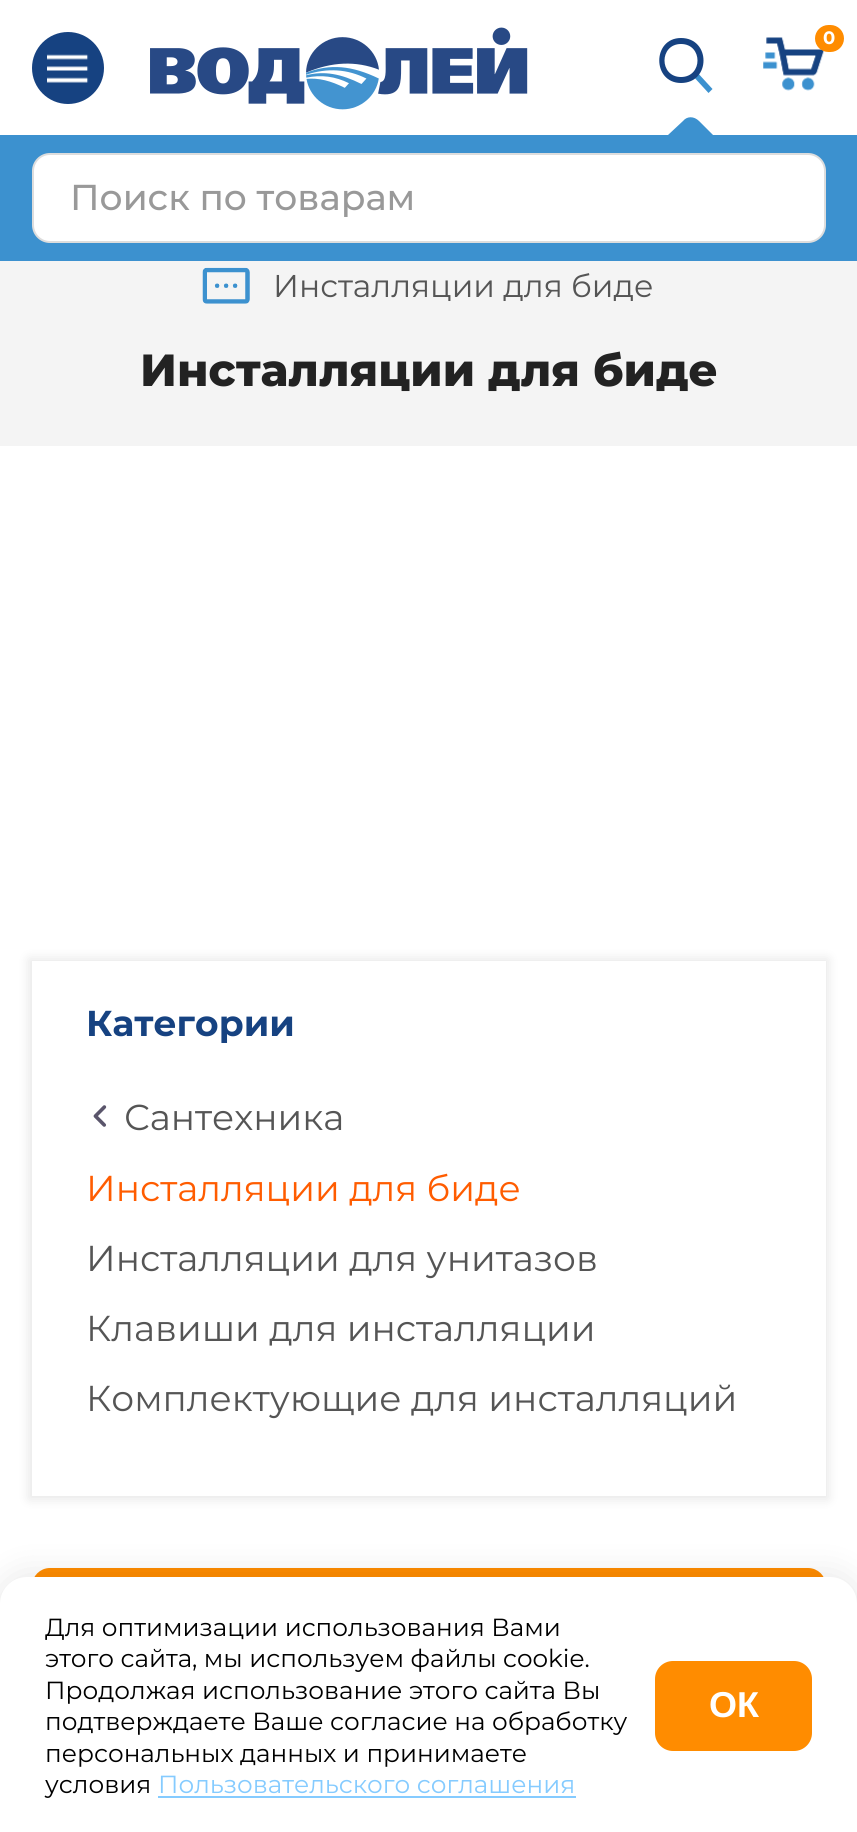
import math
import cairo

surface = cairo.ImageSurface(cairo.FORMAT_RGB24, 857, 1832)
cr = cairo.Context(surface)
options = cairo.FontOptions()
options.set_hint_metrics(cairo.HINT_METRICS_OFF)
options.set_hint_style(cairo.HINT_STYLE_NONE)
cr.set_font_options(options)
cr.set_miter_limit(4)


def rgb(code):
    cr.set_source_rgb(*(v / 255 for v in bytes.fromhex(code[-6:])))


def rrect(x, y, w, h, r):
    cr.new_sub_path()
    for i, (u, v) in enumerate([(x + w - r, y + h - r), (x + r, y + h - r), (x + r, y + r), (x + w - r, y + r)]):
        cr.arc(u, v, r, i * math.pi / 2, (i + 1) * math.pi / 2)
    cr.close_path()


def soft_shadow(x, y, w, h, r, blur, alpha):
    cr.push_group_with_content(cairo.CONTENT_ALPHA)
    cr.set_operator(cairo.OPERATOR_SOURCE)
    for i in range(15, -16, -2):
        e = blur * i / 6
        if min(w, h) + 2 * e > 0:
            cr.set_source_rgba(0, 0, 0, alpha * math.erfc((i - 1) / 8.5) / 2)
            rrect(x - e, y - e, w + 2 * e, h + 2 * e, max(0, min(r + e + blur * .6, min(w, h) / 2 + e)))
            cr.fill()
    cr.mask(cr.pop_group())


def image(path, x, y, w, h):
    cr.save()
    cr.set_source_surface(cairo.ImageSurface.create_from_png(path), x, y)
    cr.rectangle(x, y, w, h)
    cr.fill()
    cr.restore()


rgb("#ffffff")
cr.paint()
rgb("#164281")
cr.arc(68, 68, 36, 0, 2 * math.pi)
cr.fill()
image("img/1.png", 47, 54, 42, 29)
image("img/2.png", 150, 27, 378, 83)
rgb("#3c91cf")
cr.new_path()
cr.move_to(691.5, 74.5)
cr.line_to(708.5, 93)
cr.line_to(712.5, 89)
cr.line_to(695.5, 70.5)
cr.close_path()
cr.fill()
rgb("#164281")
cr.new_path()
cr.move_to(681, 83)
cr.curve_to(711, 83, 711, 38, 681, 38)
cr.curve_to(652, 38, 652, 83, 681, 83)
cr.close_path()
cr.move_to(681, 77)
cr.curve_to(659, 77, 659, 44, 681, 44)
cr.curve_to(703, 44, 703, 77, 681, 77)
cr.close_path()
cr.fill()
image("img/3.png", 763, 37, 62, 54)
rgb("#ff8c00")
rrect(815, 25, 29, 27, 13.5)
cr.fill()
rgb("#3c91cf")
cr.rectangle(0, 135, 857, 126)
cr.fill()
cr.new_path()
cr.move_to(699, 121)
cr.line_to(713, 135)
cr.line_to(707, 141)
cr.curve_to(698, 150, 684, 150, 675, 141)
cr.line_to(668, 135)
cr.line_to(683, 121)
cr.curve_to(687, 116, 694, 116, 699, 121)
cr.close_path()
cr.fill()
rgb("#ffffff")
rrect(33, 154, 792, 88, 17)
cr.fill_preserve()
rgb("#dddddd")
cr.stroke()
rgb("#f4f4f4")
cr.rectangle(0, 261, 857, 185)
cr.fill()
image("img/4.png", 202, 267, 48, 37)
cr.save()
cr.set_fill_rule(cairo.FILL_RULE_EVEN_ODD)
cr.new_path()
cr.move_to(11, 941)
cr.line_to(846, 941)
cr.line_to(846, 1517)
cr.line_to(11, 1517)
cr.close_path()
cr.move_to(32, 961)
cr.line_to(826, 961)
cr.line_to(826, 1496)
cr.line_to(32, 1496)
cr.close_path()
cr.clip()
rgb("#000000")
soft_shadow(29, 959, 799, 540, 0, 5.5, 0.1)
cr.restore()
image("img/5.png", 93, 1105, 14, 22)
rgb("#ff8c00")
rrect(34.5, 1570.5, 789, 103, 15.5)
cr.fill_preserve()
cr.set_line_width(5)
cr.stroke()
rgb("#000000")
soft_shadow(-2, 1575, 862, 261, 29, 17, 0.1)
rgb("#ffffff")
cr.new_path()
cr.move_to(27, 1577)
cr.line_to(830, 1577)
cr.curve_to(845, 1577, 857, 1589, 857, 1604)
cr.line_to(857, 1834)
cr.line_to(0, 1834)
cr.line_to(0, 1604)
cr.curve_to(0, 1589, 12, 1577, 27, 1577)
cr.close_path()
cr.fill()
rgb("#85cbff")
cr.rectangle(158, 1796, 418, 2)
cr.fill()
rgb("#ff8c00")
rrect(655, 1661, 157, 90, 18)
cr.fill()
cr.select_font_face("Montserrat", cairo.FONT_SLANT_NORMAL, cairo.FONT_WEIGHT_BOLD)
cr.set_font_size(18)
rgb("#ffffff")
cr.move_to(823, 44)
cr.show_text("0")
cr.select_font_face("Montserrat Medium")
cr.set_font_size(36)
rgb("#999999")
cr.move_to(70, 210)
cr.show_text("Поиск по товарам")
cr.select_font_face("Montserrat")
cr.set_font_size(31.5)
rgb("#555555")
cr.move_to(273, 297)
cr.show_text("Инсталляции для биде")
cr.select_font_face("Montserrat ExtraBold")
cr.set_font_size(45)
rgb("#222222")
cr.move_to(140, 386)
cr.show_text("Инсталляции для биде")
cr.select_font_face("Montserrat", cairo.FONT_SLANT_NORMAL, cairo.FONT_WEIGHT_BOLD)
cr.set_font_size(36)
rgb("#164281")
cr.move_to(86, 1036)
cr.show_text("Категории")
cr.select_font_face("Montserrat")
rgb("#555555")
cr.move_to(124, 1130)
cr.show_text("Сантехника")
rgb("#ff5c00")
cr.move_to(86, 1201)
cr.show_text("Инсталляции для биде")
rgb("#555555")
for x, y, s in [
    (86, 1271, "Инсталляции для унитазов"),
    (86, 1341, "Клавиши для инсталляции"),
    (86, 1411, "Комплектующие для инсталляций"),
]:
    cr.move_to(x, y)
    cr.show_text(s)
cr.set_font_size(24.75)
rgb("#000000")
for x, y, s in [
    (45, 1636, "Для оптимизации использования Вами"),
    (45, 1667, "этого сайта, мы используем файлы cookie."),
    (45, 1699, "Продолжая использование этого сайта Вы"),
    (45, 1730, "подтверждаете Ваше согласие на обработку"),
    (45, 1762, "персональных данных и принимаете"),
    (45, 1793, "условия"),
]:
    cr.move_to(x, y)
    cr.show_text(s)
rgb("#85cbff")
cr.move_to(158, 1793)
cr.show_text("Пользовательского соглашения")
cr.select_font_face("Liberation Sans", cairo.FONT_SLANT_NORMAL, cairo.FONT_WEIGHT_BOLD)
cr.set_font_size(36)
rgb("#ffffff")
cr.move_to(709, 1717)
cr.show_text("ОК")
surface.write_to_png("page.png")
